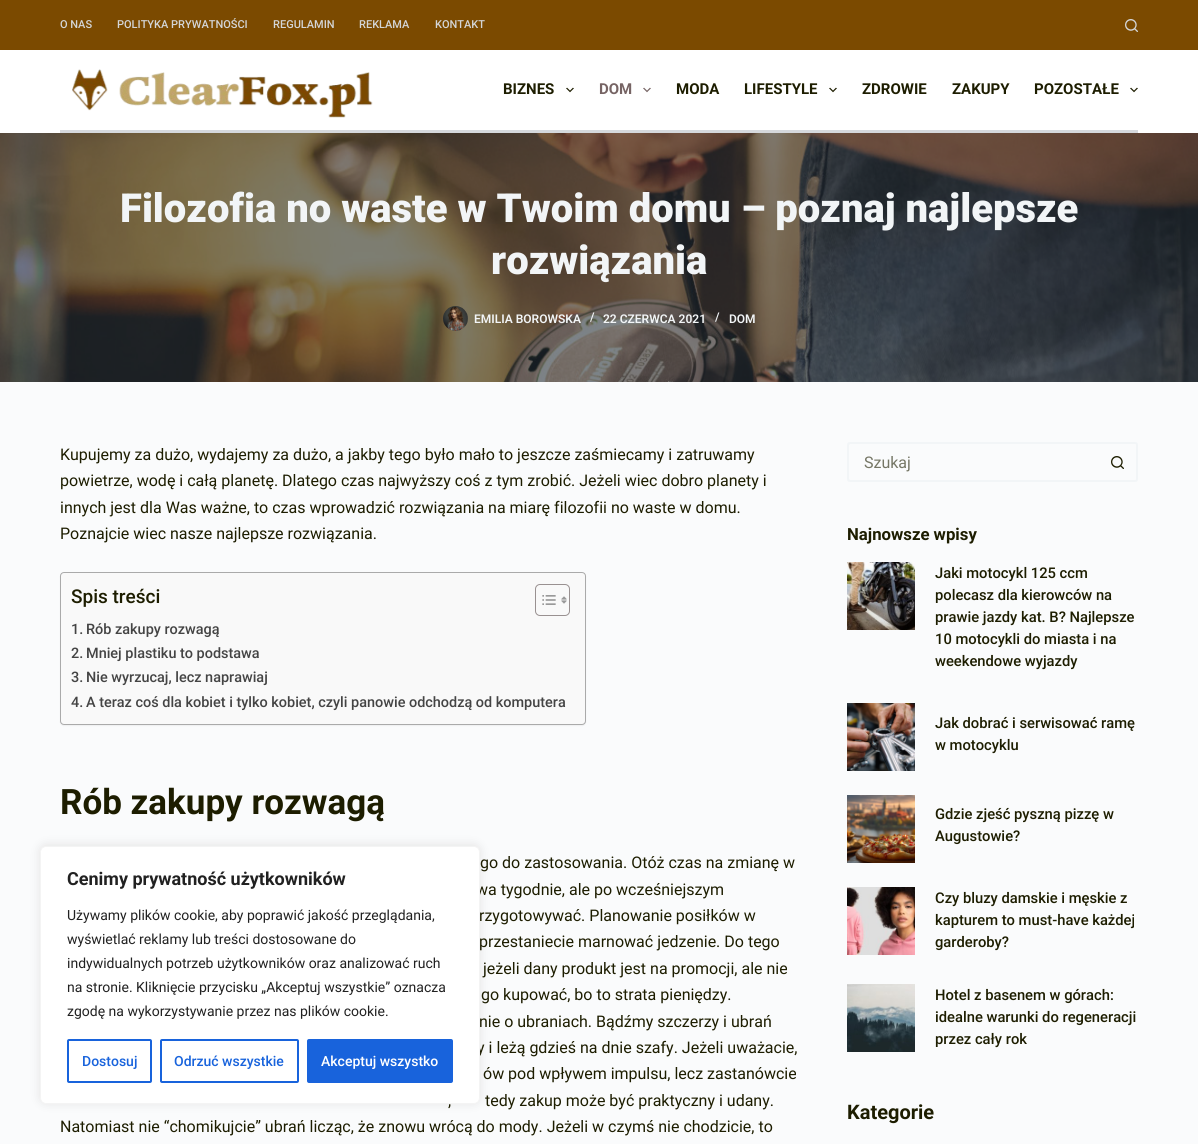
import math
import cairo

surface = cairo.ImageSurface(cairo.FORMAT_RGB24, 1198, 1144)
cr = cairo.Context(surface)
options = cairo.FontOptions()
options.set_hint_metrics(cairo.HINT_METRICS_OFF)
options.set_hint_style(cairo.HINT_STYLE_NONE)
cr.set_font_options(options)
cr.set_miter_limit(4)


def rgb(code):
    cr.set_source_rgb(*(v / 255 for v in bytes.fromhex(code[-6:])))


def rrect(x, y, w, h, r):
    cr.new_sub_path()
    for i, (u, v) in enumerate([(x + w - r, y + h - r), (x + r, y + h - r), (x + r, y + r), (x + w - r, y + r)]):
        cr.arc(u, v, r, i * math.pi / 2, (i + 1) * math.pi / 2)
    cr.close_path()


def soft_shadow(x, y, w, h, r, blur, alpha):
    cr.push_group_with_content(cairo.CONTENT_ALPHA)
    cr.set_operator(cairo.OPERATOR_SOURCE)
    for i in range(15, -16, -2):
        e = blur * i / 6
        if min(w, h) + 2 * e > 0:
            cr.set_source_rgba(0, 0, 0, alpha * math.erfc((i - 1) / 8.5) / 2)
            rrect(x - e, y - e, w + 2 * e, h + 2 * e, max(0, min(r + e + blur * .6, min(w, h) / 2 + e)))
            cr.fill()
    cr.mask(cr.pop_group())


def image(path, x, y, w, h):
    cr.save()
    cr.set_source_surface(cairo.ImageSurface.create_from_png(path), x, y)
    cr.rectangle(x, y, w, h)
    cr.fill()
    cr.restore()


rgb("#fafbfc")
cr.paint()
rgb("#7b4a00")
cr.rectangle(0, 0, 1198, 50)
cr.fill()
image("img/1.png", 1125, 19, 13, 13)
rgb("#ffffff")
cr.rectangle(0, 50, 1198, 83)
cr.fill()
rgb("#d5d8dc")
cr.rectangle(60, 130, 1078, 3)
cr.fill()
image("img/2.png", 72, 69, 301, 49)
image("img/3.png", 566, 87, 8, 6)
image("img/4.png", 643, 87, 8, 6)
image("img/3.png", 829, 87, 8, 6)
image("img/3.png", 1130, 87, 8, 6)
image("img/5.png", 0, 133, 1198, 249)
image("img/6.png", 443, 306, 25, 25)
rgb("#000000")
soft_shadow(60, 573, 526, 153, 4, 0.5, 0.05)
rgb("#f9f9f9")
rrect(60.5, 572.5, 525, 152, 3.5)
cr.fill_preserve()
rgb("#aaaaaa")
cr.set_line_width(1)
cr.stroke()
rrect(535.5, 584.5, 34, 31, 4.5)
rgb("#999191")
cr.stroke()
image("img/7.png", 542, 595, 14, 10)
image("img/8.png", 561, 596, 6, 8)
rgb("#f2f5f7")
cr.set_fill_rule(cairo.FILL_RULE_EVEN_ODD)
cr.new_path()
cr.move_to(850, 442)
cr.line_to(1098, 442)
cr.line_to(1098, 482)
cr.line_to(850, 482)
cr.curve_to(848, 482, 847, 481, 847, 479)
cr.line_to(847, 445)
cr.curve_to(847, 443, 848, 442, 850, 442)
cr.close_path()
cr.move_to(850, 444)
cr.line_to(1098, 444)
cr.line_to(1098, 480)
cr.line_to(850, 480)
cr.line_to(849, 479)
cr.line_to(849, 445)
cr.close_path()
cr.fill()
cr.new_path()
cr.move_to(1098, 442)
cr.line_to(1135, 442)
cr.curve_to(1137, 442, 1138, 443, 1138, 445)
cr.line_to(1138, 479)
cr.curve_to(1138, 481, 1137, 482, 1135, 482)
cr.line_to(1098, 482)
cr.close_path()
cr.move_to(1098, 444)
cr.line_to(1135, 444)
cr.curve_to(1136, 444, 1136, 444, 1136, 445)
cr.line_to(1136, 479)
cr.curve_to(1136, 480, 1136, 480, 1135, 480)
cr.line_to(1098, 480)
cr.close_path()
cr.fill()
image("img/9.png", 1111, 456, 13, 13)
image("img/10.png", 847, 562, 68, 68)
image("img/11.png", 847, 703, 68, 68)
image("img/12.png", 847, 795, 68, 68)
image("img/13.png", 847, 887, 68, 68)
image("img/14.png", 847, 984, 68, 68)
rgb("#acabab")
soft_shadow(40, 845, 440, 258, 6, 5, 0.3)
cr.select_font_face("Roboto Medium")
cr.set_font_size(11)
rgb("#d4d6d8")
for x, y, s in [
    (60, 28, "O NAS"),
    (117, 28, "POLITYKA PRYWATNOŚCI"),
    (273, 28, "REGULAMIN"),
    (359, 28, "REKLAMA"),
    (435, 28, "KONTAKT"),
]:
    cr.move_to(x, y)
    cr.show_text(s)
cr.select_font_face("Roboto", cairo.FONT_SLANT_NORMAL, cairo.FONT_WEIGHT_BOLD)
cr.set_font_size(15)
rgb("#1d1d00")
cr.move_to(503, 94)
cr.show_text("BIZNES")
rgb("#766464")
cr.move_to(599, 94)
cr.show_text("DOM")
rgb("#1d1d00")
for x, y, s in [
    (676, 94, "MODA"),
    (744, 94, "LIFESTYLE"),
    (862, 94, "ZDROWIE"),
    (952, 94, "ZAKUPY"),
    (1034, 94, "POZOSTAŁE"),
]:
    cr.move_to(x, y)
    cr.show_text(s)
cr.select_font_face("Roboto Black")
cr.set_font_size(40)
rgb("#f2f5f7")
cr.move_to(120, 222)
cr.show_text("Filozofia no waste w Twoim domu – poznaj najlepsze")
cr.move_to(491, 274)
cr.show_text("rozwiązania")
cr.select_font_face("Roboto SemiBold")
cr.set_font_size(12)
for x, y, s in [
    (474, 323, "EMILIA BOROWSKA"),
    (590, 321, "/"),
    (603, 323, "22 CZERWCA 2021"),
    (715, 321, "/"),
    (729, 323, "DOM"),
]:
    cr.move_to(x, y)
    cr.show_text(s)
cr.select_font_face("Roboto")
cr.set_font_size(16)
rgb("#1d1d00")
for x, y, s in [
    (60, 460, "Kupujemy za dużo, wydajemy za dużo, a jakby tego było mało to jeszcze zaśmiecamy i zatruwamy"),
    (60, 486, "powietrze, wodę i całą planetę. Dlatego czas najwyższy coś z tym zrobić. Jeżeli wiec dobro planety i"),
    (60, 513, "innych jest dla Was ważne, to czas wprowadzić rozwiązania na miarę filozofii no waste w domu."),
    (60, 539, "Poznajcie wiec nasze najlepsze rozwiązania."),
]:
    cr.move_to(x, y)
    cr.show_text(s)
cr.select_font_face("Roboto Medium")
cr.set_font_size(19)
cr.move_to(71, 603)
cr.show_text("Spis treści")
cr.set_font_size(14.45)
rgb("#444444")
for x, y, s in [
    (71, 634, "1."),
    (86, 634, "Rób zakupy rozwagą"),
    (71, 658, "2."),
    (86, 658, "Mniej plastiku to podstawa"),
    (71, 682, "3."),
    (86, 682, "Nie wyrzucaj, lecz naprawiaj"),
    (71, 707, "4."),
    (86, 707, "A teraz coś dla kobiet i tylko kobiet, czyli panowie odchodzą od komputera"),
]:
    cr.move_to(x, y)
    cr.show_text(s)
cr.select_font_face("Roboto", cairo.FONT_SLANT_NORMAL, cairo.FONT_WEIGHT_BOLD)
cr.set_font_size(35)
rgb("#1d1d00")
cr.move_to(60, 814)
cr.show_text("Rób zakupy rozwagą")
cr.select_font_face("Roboto")
cr.set_font_size(16)
for x, y, s in [
    (480, 868, "go do zastosowania. Otóż czas na zmianę w"),
    (476, 895, "wa tygodnie, ale po wcześniejszym"),
    (479, 921, "rzygotowywać. Planowanie posiłków w"),
    (479, 947, "przestaniecie marnować jedzenie. Do tego"),
    (483, 974, "jeżeli dany produkt jest na promocji, ale nie"),
    (481, 1000, "go kupować, bo to strata pieniędzy."),
    (479, 1027, "nie o ubraniach. Bądźmy szczerzy i ubrań"),
    (477, 1053, "y i leżą gdzieś na dnie szafy. Jeżeli uważacie,"),
    (483, 1079, "ów pod wpływem impulsu, lecz zastanówcie"),
    (448, 1106, ","),
    (485, 1106, "tedy zakup może być praktyczny i udany."),
    (60, 1132, "Natomiast nie “chomikujcie” ubrań licząc, że znowu wrócą do mody. Jeżeli w czymś nie chodzicie, to"),
]:
    cr.move_to(x, y)
    cr.show_text(s)
rgb("#757665")
cr.move_to(864, 468)
cr.show_text("Szukaj")
cr.select_font_face("Roboto", cairo.FONT_SLANT_NORMAL, cairo.FONT_WEIGHT_BOLD)
cr.set_font_size(16.75)
rgb("#1d1d00")
cr.move_to(847, 540)
cr.show_text("Najnowsze wpisy")
cr.select_font_face("Roboto Medium")
cr.set_font_size(14.75)
for x, y, s in [
    (935, 578, "Jaki motocykl 125 ccm"),
    (935, 600, "polecasz dla kierowców na"),
    (935, 622, "prawie jazdy kat. B? Najlepsze"),
    (935, 644, "10 motocykli do miasta i na"),
    (935, 666, "weekendowe wyjazdy"),
    (935, 728, "Jak dobrać i serwisować ramę"),
    (935, 750, "w motocyklu"),
    (935, 819, "Gdzie zjeść pyszną pizzę w"),
    (935, 841, "Augustowie?"),
    (935, 903, "Czy bluzy damskie i męskie z"),
    (935, 925, "kapturem to must-have każdej"),
    (935, 947, "garderoby?"),
    (935, 1000, "Hotel z basenem w górach:"),
    (935, 1022, "idealne warunki do regeneracji"),
    (935, 1044, "przez cały rok"),
]:
    cr.move_to(x, y)
    cr.show_text(s)
cr.select_font_face("Roboto", cairo.FONT_SLANT_NORMAL, cairo.FONT_WEIGHT_BOLD)
cr.set_font_size(20)
cr.move_to(847, 1119)
cr.show_text("Kategorie")
rgb("#ffffff")
rrect(40.5, 846.5, 439, 257, 5.5)
cr.fill_preserve()
rgb("#f4f4f4")
cr.stroke()
cr.set_font_size(18)
rgb("#212121")
cr.move_to(67, 885)
cr.show_text("Cenimy prywatność użytkowników")
cr.select_font_face("Roboto")
cr.set_font_size(14)
for x, y, s in [
    (67, 920, "Używamy plików cookie, aby poprawić jakość przeglądania,"),
    (67, 944, "wyświetlać reklamy lub treści dostosowane do"),
    (67, 968, "indywidualnych potrzeb użytkowników oraz analizować ruch"),
    (67, 992, "na stronie. Kliknięcie przycisku „Akceptuj wszystkie” oznacza"),
    (67, 1016, "zgodę na wykorzystywanie przez nas plików cookie."),
]:
    cr.move_to(x, y)
    cr.show_text(s)
rrect(68, 1040, 83, 42, 1)
rgb("#1863dc")
cr.set_line_width(2)
cr.stroke()
cr.select_font_face("Roboto Medium")
cr.move_to(82, 1066)
cr.show_text("Dostosuj")
rrect(161, 1040, 137, 42, 1)
cr.stroke()
cr.move_to(174, 1066)
cr.show_text("Odrzuć wszystkie")
rrect(308, 1040, 144, 42, 1)
cr.fill_preserve()
cr.stroke()
rgb("#ffffff")
cr.move_to(321, 1066)
cr.show_text("Akceptuj wszystko")
surface.write_to_png("page.png")
